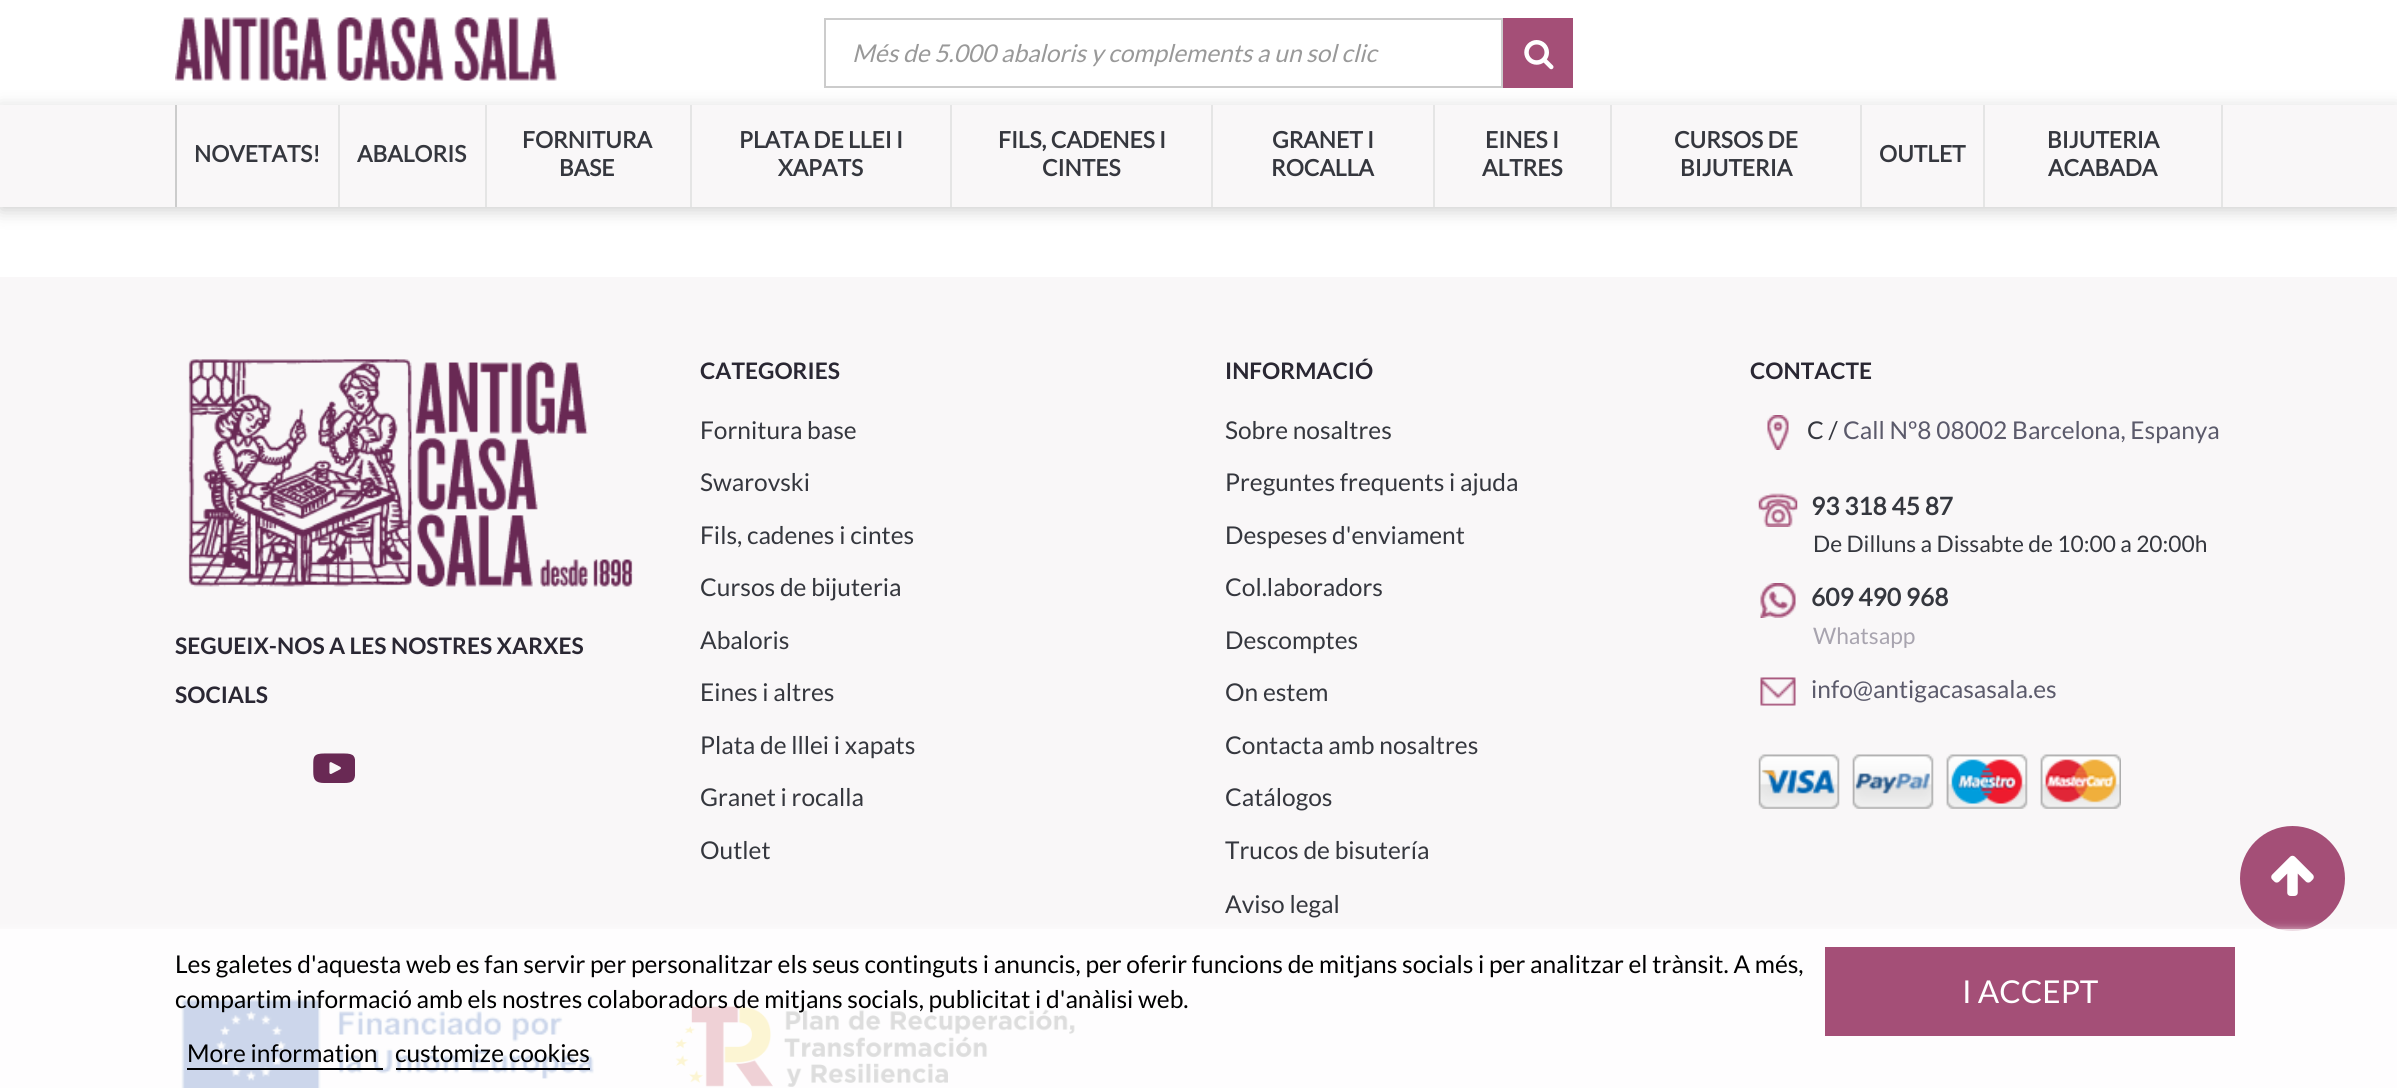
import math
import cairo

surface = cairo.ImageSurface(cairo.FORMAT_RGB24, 2397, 1088)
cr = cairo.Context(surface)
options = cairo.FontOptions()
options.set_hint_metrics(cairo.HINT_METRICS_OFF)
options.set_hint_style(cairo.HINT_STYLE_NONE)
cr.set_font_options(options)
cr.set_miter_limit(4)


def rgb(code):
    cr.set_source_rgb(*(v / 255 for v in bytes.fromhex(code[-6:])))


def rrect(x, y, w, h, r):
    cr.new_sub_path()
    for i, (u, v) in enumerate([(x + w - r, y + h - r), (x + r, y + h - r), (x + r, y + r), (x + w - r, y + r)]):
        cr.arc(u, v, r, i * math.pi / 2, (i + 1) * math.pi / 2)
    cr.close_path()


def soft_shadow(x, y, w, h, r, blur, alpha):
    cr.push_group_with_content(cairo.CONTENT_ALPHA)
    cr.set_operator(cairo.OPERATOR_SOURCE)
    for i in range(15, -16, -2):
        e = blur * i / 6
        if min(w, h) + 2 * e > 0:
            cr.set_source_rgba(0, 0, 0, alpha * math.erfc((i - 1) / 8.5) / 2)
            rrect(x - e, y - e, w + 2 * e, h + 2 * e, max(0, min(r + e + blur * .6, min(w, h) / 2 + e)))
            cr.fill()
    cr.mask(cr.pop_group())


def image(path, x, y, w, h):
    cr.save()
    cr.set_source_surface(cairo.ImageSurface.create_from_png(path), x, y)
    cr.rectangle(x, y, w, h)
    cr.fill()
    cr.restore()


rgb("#ffffff")
cr.paint()
image("img/1.png", 175, 17, 382, 64)
cr.rectangle(825, 19, 677, 68)
rgb("#cccccc")
cr.stroke()
rgb("#a44f77")
cr.rectangle(1503, 18, 70, 70)
cr.fill()
image("img/2.png", 1524, 40, 30, 30)
rgb("#f9f7f8")
cr.rectangle(0, 277, 2397, 811)
cr.fill()
image("img/5.png", 181, 999, 413, 89)
image("img/6.png", 675, 1006, 400, 81)
rgb("#a44f77")
cr.arc(2292.5, 878.5, 52.5, 0, 2 * math.pi)
cr.fill()
cr.save()
cr.set_fill_rule(cairo.FILL_RULE_EVEN_ODD)
cr.new_path()
cr.move_to(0, 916)
cr.line_to(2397, 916)
cr.line_to(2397, 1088)
cr.line_to(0, 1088)
cr.close_path()
cr.move_to(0, 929)
cr.line_to(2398, 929)
cr.line_to(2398, 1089)
cr.line_to(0, 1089)
cr.close_path()
cr.clip()
rgb("#ffffff")
soft_shadow(0, 931, 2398, 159, 0, 4.5, 1)
cr.restore()
cr.set_source_rgba(1, 1, 1, 0.8)
cr.rectangle(0, 929, 2397, 159)
cr.fill()
rgb("#000000")
cr.rectangle(187, 1068, 196, 2)
cr.rectangle(396, 1068, 194, 2)
cr.fill()
rgb("#a44f77")
cr.rectangle(1825, 947, 410, 89)
cr.fill()
rgb("#000000")
soft_shadow(0, 109, 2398, 101, 0, 9, 0.2)
for x, y, w, h, color in [
    (0, 105, 2397, 102, "#f9f7f8"),
    (175, 105, 2, 102, "#cccccc"),
    (338, 105, 2, 102, "#e5e5e5"),
    (485, 105, 2, 102, "#e5e5e5"),
    (690, 105, 2, 102, "#e5e5e5"),
    (950, 105, 2, 102, "#e5e5e5"),
    (1211, 105, 2, 102, "#e5e5e5"),
    (1433, 105, 2, 102, "#e5e5e5"),
    (1610, 105, 2, 102, "#e5e5e5"),
    (1860, 105, 2, 102, "#e5e5e5"),
    (1983, 105, 2, 102, "#e5e5e5"),
    (2221, 105, 2, 102, "#e5e5e5"),
]:
    rgb(color)
    cr.rectangle(x, y, w, h)
    cr.fill()
image("img/3.png", 188, 359, 445, 228)
image("img/4.png", 313, 753, 42, 30)
image("img/7.png", 1767, 415, 22, 35)
image("img/8.png", 1758, 493, 40, 34)
image("img/9.png", 1760, 583, 36, 35)
image("img/10.png", 1760, 677, 36, 29)
image("img/11.png", 1758, 754, 363, 55)
image("img/12.png", 2271, 855, 43, 41)
cr.select_font_face("Lato", cairo.FONT_SLANT_ITALIC)
cr.set_font_size(24.5)
rgb("#999999")
cr.move_to(852, 62)
cr.show_text("Més de 5.000 abaloris y complements a un sol clic")
cr.select_font_face("Lato")
rgb("#000000")
for x, y, s in [
    (175, 973, "Les galetes d'aquesta web es fan servir per personalitzar els seus continguts i anuncis, per oferir funcions de mitjans socials i per analitzar el trànsit. A més,"),
    (175, 1008, "compartim informació amb els nostres colaboradors de mitjans socials, publicitat i d'anàlisi web."),
    (187, 1062, "More information"),
    (395, 1062, "customize cookies"),
]:
    cr.move_to(x, y)
    cr.show_text(s)
cr.set_font_size(31.5)
rgb("#ffffff")
cr.move_to(1962, 1003)
cr.show_text("I ACCEPT")
cr.select_font_face("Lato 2", cairo.FONT_SLANT_NORMAL, cairo.FONT_WEIGHT_BOLD)
cr.set_font_size(22.75)
rgb("#35373e")
for x, y, s in [
    (194, 162, "NOVETATS!"),
    (357, 162, "ABALORIS"),
    (522, 148, "FORNITURA"),
    (559, 176, "BASE"),
    (739, 148, "PLATA DE LLEI I"),
    (778, 176, "XAPATS"),
    (998, 148, "FILS, CADENES I"),
    (1042, 176, "CINTES"),
    (1272, 148, "GRANET I"),
    (1271, 176, "ROCALLA"),
    (1485, 148, "EINES I"),
    (1482, 176, "ALTRES"),
    (1674, 148, "CURSOS DE"),
    (1680, 176, "BIJUTERIA"),
    (1879, 162, "OUTLET"),
    (2047, 148, "BIJUTERIA"),
    (2048, 176, "ACABADA"),
]:
    cr.move_to(x, y)
    cr.show_text(s)
cr.select_font_face("Lato", cairo.FONT_SLANT_NORMAL, cairo.FONT_WEIGHT_BOLD)
rgb("#2a2733")
for x, y, s in [
    (175, 654, "SEGUEIX-NOS A LES NOSTRES XARXES"),
    (175, 703, "SOCIALS"),
    (700, 379, "CATEGORIES"),
]:
    cr.move_to(x, y)
    cr.show_text(s)
cr.select_font_face("Lato")
cr.set_font_size(24.5)
rgb("#35373e")
for x, y, s in [
    (700, 439, "Fornitura base"),
    (700, 491, "Swarovski"),
    (700, 544, "Fils, cadenes i cintes"),
    (700, 596, "Cursos de bijuteria"),
    (700, 649, "Abaloris"),
    (700, 701, "Eines i altres"),
    (700, 754, "Plata de lllei i xapats"),
    (700, 806, "Granet i rocalla"),
    (700, 859, "Outlet"),
]:
    cr.move_to(x, y)
    cr.show_text(s)
cr.select_font_face("Lato", cairo.FONT_SLANT_NORMAL, cairo.FONT_WEIGHT_BOLD)
cr.set_font_size(22.75)
rgb("#2a2733")
cr.move_to(1225, 379)
cr.show_text("INFORMACIÓ")
cr.select_font_face("Lato")
cr.set_font_size(24.5)
rgb("#35373e")
for x, y, s in [
    (1225, 439, "Sobre nosaltres"),
    (1225, 491, "Preguntes frequents i ajuda"),
    (1225, 544, "Despeses d'enviament"),
    (1225, 596, "Col.laboradors"),
    (1225, 649, "Descomptes"),
    (1225, 701, "On estem"),
    (1225, 754, "Contacta amb nosaltres"),
    (1225, 806, "Catálogos"),
    (1225, 859, "Trucos de bisutería"),
    (1225, 913, "Aviso legal"),
]:
    cr.move_to(x, y)
    cr.show_text(s)
cr.select_font_face("Lato", cairo.FONT_SLANT_NORMAL, cairo.FONT_WEIGHT_BOLD)
cr.set_font_size(22.75)
rgb("#2a2733")
cr.move_to(1750, 379)
cr.show_text("CONTACTE")
cr.select_font_face("Lato")
cr.set_font_size(24.5)
rgb("#35373e")
cr.move_to(1807, 439)
cr.show_text("C /")
rgb("#5b5a6b")
cr.move_to(1843, 439)
cr.show_text("Call Nº8 08002 Barcelona, Espanya")
cr.select_font_face("Lato 2", cairo.FONT_SLANT_NORMAL, cairo.FONT_WEIGHT_BOLD)
rgb("#35373e")
cr.move_to(1811, 515)
cr.show_text("93 318 45 87")
cr.select_font_face("Lato")
cr.set_font_size(22.75)
cr.move_to(1813, 552)
cr.show_text("De Dilluns a Dissabte de 10:00 a 20:00h")
cr.select_font_face("Lato 2", cairo.FONT_SLANT_NORMAL, cairo.FONT_WEIGHT_BOLD)
cr.set_font_size(24.5)
cr.move_to(1811, 606)
cr.show_text("609 490 968")
cr.select_font_face("Lato")
cr.set_font_size(22.75)
rgb("#a8a4af")
cr.move_to(1813, 644)
cr.show_text("Whatsapp")
cr.set_font_size(24.5)
rgb("#5b5a6b")
cr.move_to(1811, 698)
cr.show_text("info@antigacasasala.es")
surface.write_to_png("page.png")
